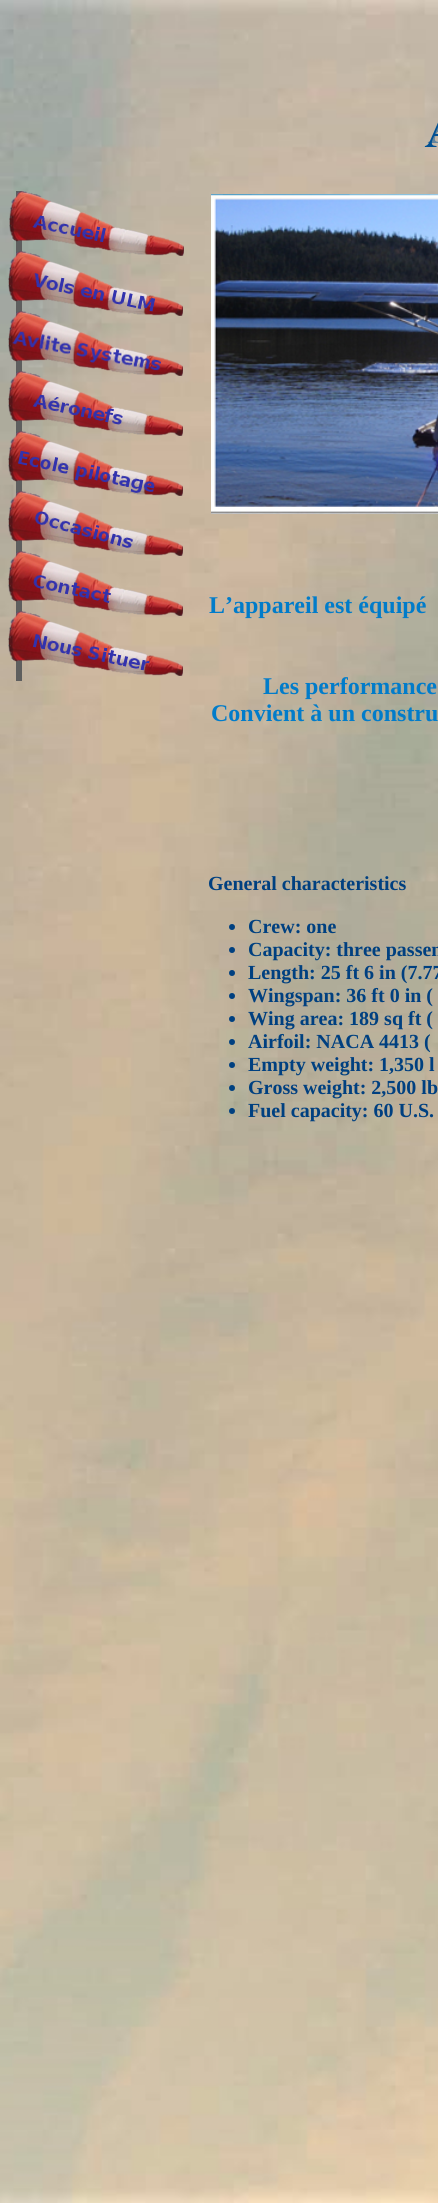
import math
import cairo

surface = cairo.ImageSurface(cairo.FORMAT_RGB24, 438, 2203)
cr = cairo.Context(surface)
options = cairo.FontOptions()
options.set_hint_metrics(cairo.HINT_METRICS_OFF)
options.set_hint_style(cairo.HINT_STYLE_NONE)
cr.set_font_options(options)
cr.set_miter_limit(4)


def rgb(code):
    cr.set_source_rgb(*(v / 255 for v in bytes.fromhex(code[-6:])))


def image(path, x, y, w, h):
    cr.save()
    cr.set_source_surface(cairo.ImageSurface.create_from_png(path), x, y)
    cr.rectangle(x, y, w, h)
    cr.fill()
    cr.restore()


rgb("#ffffff")
cr.paint()
image("img/1.png", 0, 0, 438, 2203)
image("img/2.png", 424, 122, 14, 25)
image("img/3.png", 8, 191, 176, 490)
image("img/4.png", 211, 194, 227, 320)
rgb("#004080")
cr.arc(232, 927, 3, 0, 2 * math.pi)
cr.fill()
cr.arc(232, 950, 3, 0, 2 * math.pi)
cr.fill()
cr.arc(232, 973, 3, 0, 2 * math.pi)
cr.fill()
cr.arc(232, 996, 3, 0, 2 * math.pi)
cr.fill()
cr.arc(232, 1019, 3, 0, 2 * math.pi)
cr.fill()
cr.arc(232, 1042, 3, 0, 2 * math.pi)
cr.fill()
cr.arc(232, 1065, 3, 0, 2 * math.pi)
cr.fill()
cr.arc(232, 1088, 3, 0, 2 * math.pi)
cr.fill()
cr.arc(232, 1111, 3, 0, 2 * math.pi)
cr.fill()
cr.select_font_face("Liberation Serif", cairo.FONT_SLANT_NORMAL, cairo.FONT_WEIGHT_BOLD)
cr.set_font_size(24)
rgb("#017cca")
for x, y, s in [
    (209, 613, "L’appareil est équipé"),
    (263, 694, "Les performance"),
    (211, 721, "Convient à un constru"),
]:
    cr.move_to(x, y)
    cr.show_text(s)
cr.set_font_size(20)
rgb("#004080")
for x, y, s in [
    (208, 890, "General characteristics"),
    (248, 933, "Crew: one"),
    (248, 956, "Capacity: three passen"),
    (248, 979, "Length: 25 ft 6 in (7.77"),
    (248, 1002, "Wingspan: 36 ft 0 in ("),
    (248, 1025, "Wing area: 189 sq ft ("),
    (248, 1048, "Airfoil: NACA 4413 ("),
    (248, 1071, "Empty weight: 1,350 l"),
    (248, 1094, "Gross weight: 2,500 lb"),
    (248, 1117, "Fuel capacity: 60 U.S."),
]:
    cr.move_to(x, y)
    cr.show_text(s)
surface.write_to_png("page.png")
